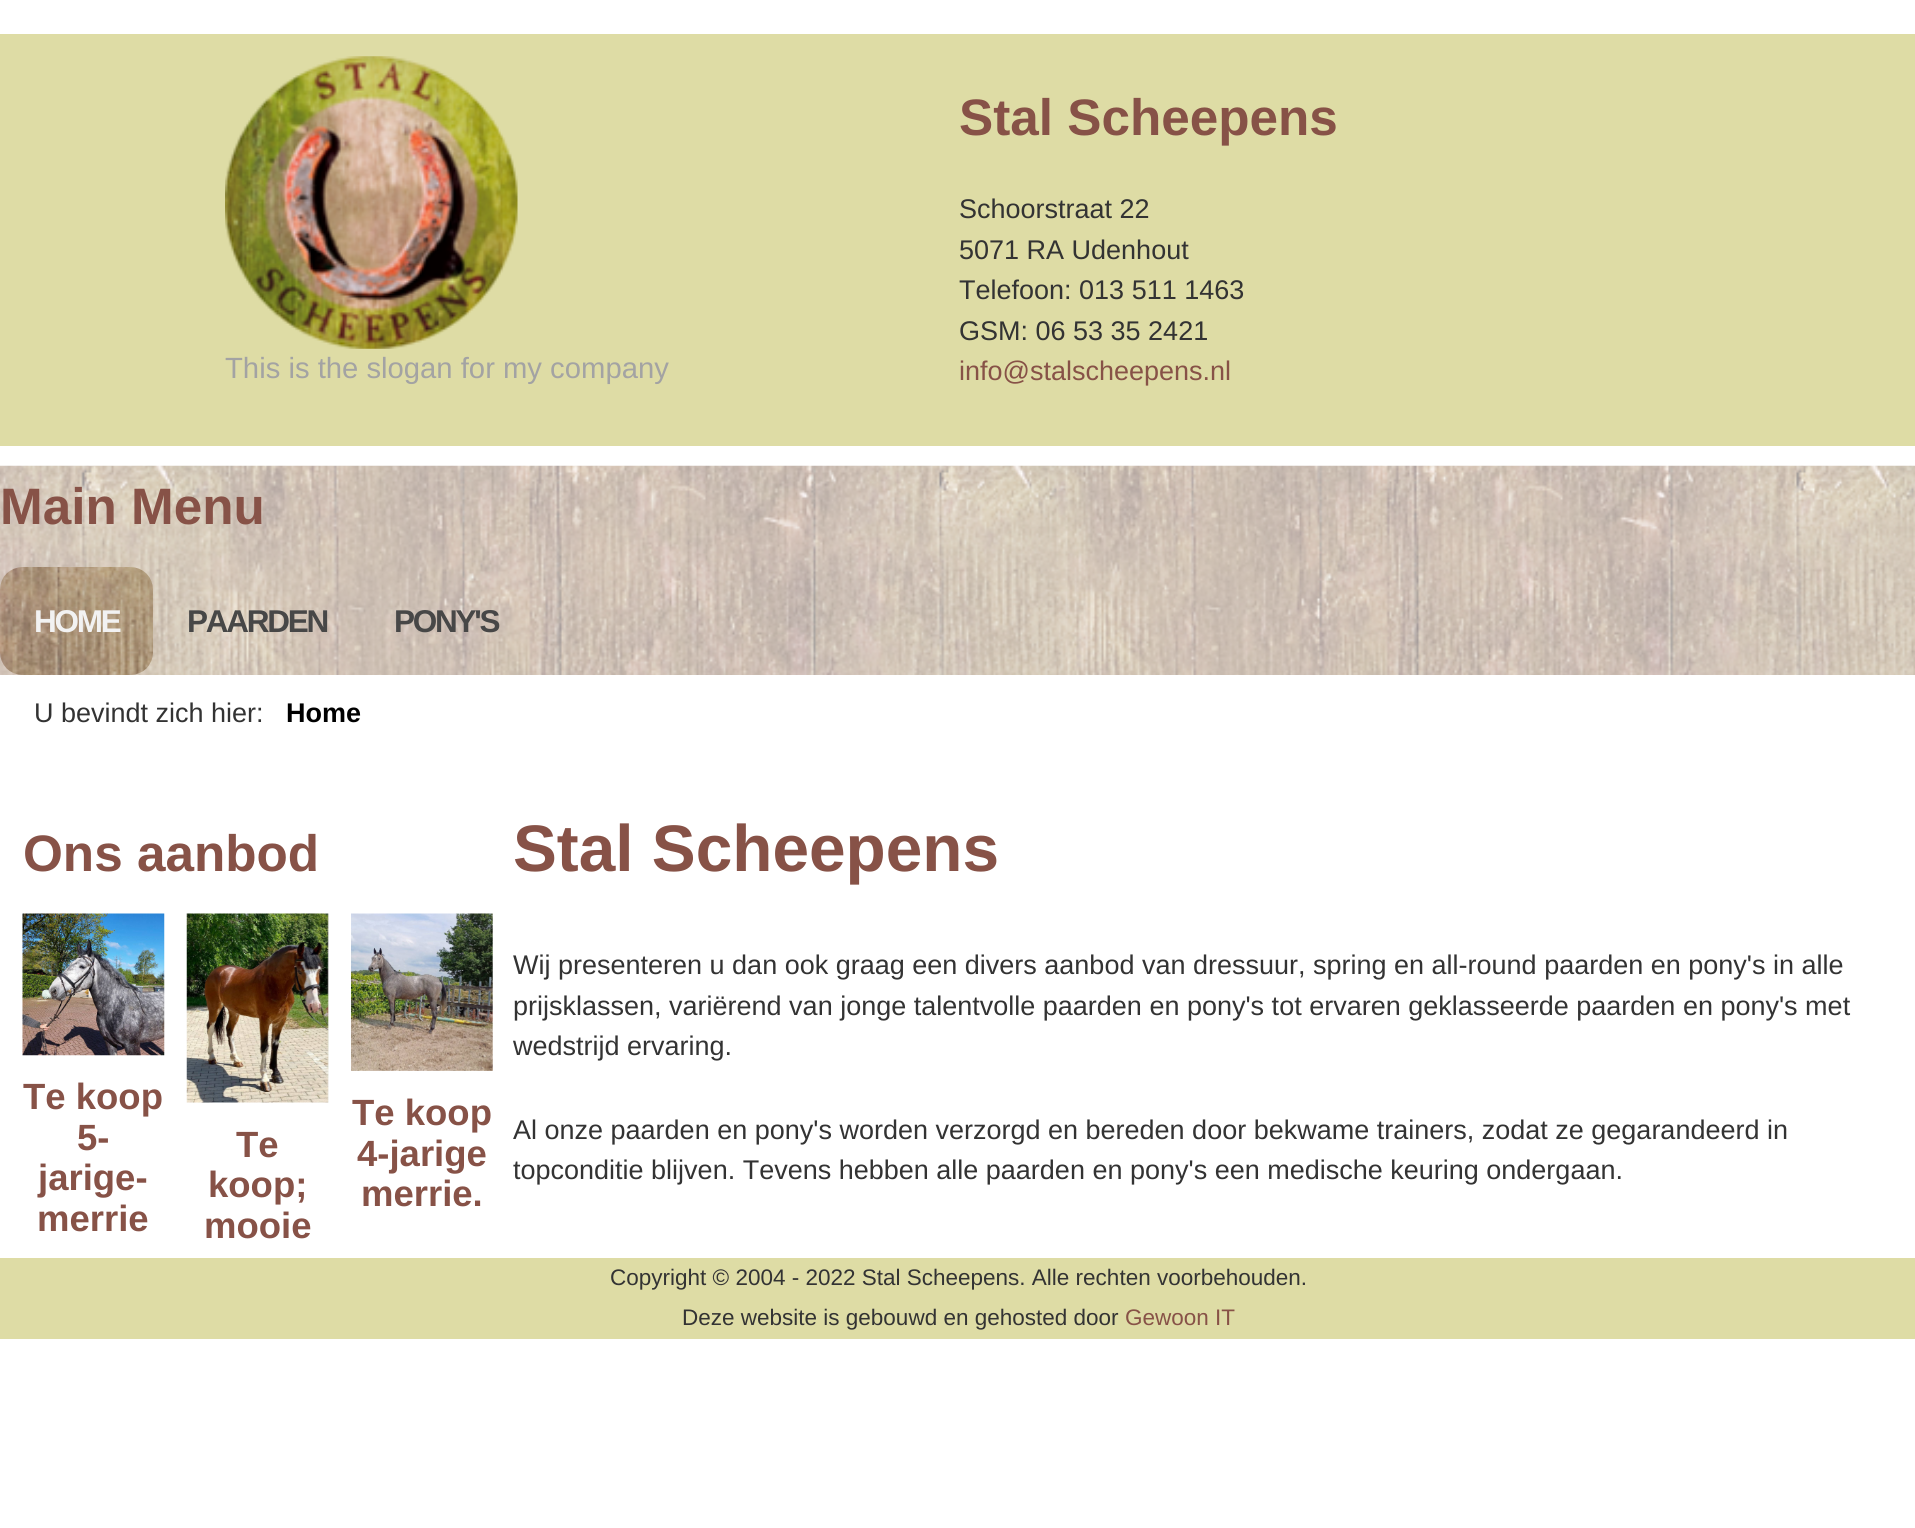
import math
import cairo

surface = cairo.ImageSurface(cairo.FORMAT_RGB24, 1915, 1528)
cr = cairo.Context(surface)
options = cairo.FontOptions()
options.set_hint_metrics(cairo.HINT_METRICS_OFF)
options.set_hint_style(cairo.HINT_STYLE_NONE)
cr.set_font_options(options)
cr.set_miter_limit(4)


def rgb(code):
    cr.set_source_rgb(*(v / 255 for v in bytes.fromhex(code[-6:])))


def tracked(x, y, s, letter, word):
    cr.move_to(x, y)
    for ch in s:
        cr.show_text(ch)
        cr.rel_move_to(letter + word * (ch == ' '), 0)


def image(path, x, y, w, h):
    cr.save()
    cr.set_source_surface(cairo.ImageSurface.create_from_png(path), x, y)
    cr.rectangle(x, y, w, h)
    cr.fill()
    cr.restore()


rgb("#ffffff")
cr.paint()
rgb("#dedca5")
cr.rectangle(0, 34, 1915, 412)
cr.fill()
image("img/1.png", 225, 56, 293, 293)
image("img/2.png", 0, 465, 1915, 210)
image("img/3.png", 0, 567, 153, 108)
image("img/4.png", 22, 913, 143, 143)
image("img/5.png", 186, 913, 143, 190)
image("img/6.png", 351, 913, 142, 158)
cr.rectangle(0, 1258, 1915, 81)
cr.fill()
cr.select_font_face("Liberation Sans")
cr.set_font_size(29.25)
rgb("#a3a3a3")
cr.move_to(225, 378)
cr.show_text("This is the slogan for my company")
cr.select_font_face("Liberation Sans", cairo.FONT_SLANT_NORMAL, cairo.FONT_WEIGHT_BOLD)
cr.set_font_size(51.25)
rgb("#875247")
cr.move_to(959, 135)
cr.show_text("Stal Scheepens")
cr.select_font_face("Liberation Sans")
cr.set_font_size(27)
rgb("#333333")
for x, y, s in [
    (959, 218, "Schoorstraat 22"),
    (959, 259, "5071 RA Udenhout"),
    (959, 299, "Telefoon: 013 511 1463"),
    (959, 340, "GSM: 06 53 35 2421"),
]:
    cr.move_to(x, y)
    cr.show_text(s)
rgb("#875247")
cr.move_to(959, 380)
cr.show_text("info@stalscheepens.nl")
cr.select_font_face("Liberation Sans", cairo.FONT_SLANT_NORMAL, cairo.FONT_WEIGHT_BOLD)
cr.set_font_size(51.25)
cr.move_to(0, 524)
cr.show_text("Main Menu")
cr.set_font_size(31.5)
rgb("#f2f2f2")
tracked(34, 632, "HOME", -2.25, 0)
rgb("#474747")
tracked(187, 632, "PAARDEN", -2.25, 0)
tracked(394, 632, "PONY'S", -2.25, 0)
cr.select_font_face("Liberation Sans")
cr.set_font_size(27)
rgb("#333333")
cr.move_to(34, 722)
cr.show_text("U bevindt zich hier:")
cr.select_font_face("Liberation Sans", cairo.FONT_SLANT_NORMAL, cairo.FONT_WEIGHT_BOLD)
rgb("#000000")
cr.move_to(286, 722)
cr.show_text("Home")
cr.set_font_size(51.25)
rgb("#875247")
cr.move_to(23, 871)
cr.show_text("Ons aanbod")
cr.set_font_size(36.5)
for x, y, s in [
    (23, 1109, "Te koop"),
    (77, 1150, "5-"),
    (38, 1190, "jarige-"),
    (37, 1231, "merrie"),
    (236, 1157, "Te"),
    (208, 1197, "koop;"),
    (204, 1238, "mooie"),
    (352, 1125, "Te koop"),
    (357, 1166, "4-jarige"),
    (361, 1206, "merrie."),
]:
    cr.move_to(x, y)
    cr.show_text(s)
cr.set_font_size(65.75)
cr.move_to(513, 871)
cr.show_text("Stal Scheepens")
cr.select_font_face("Liberation Sans")
cr.set_font_size(27)
rgb("#333333")
for x, y, s in [
    (513, 974, "Wij presenteren u dan ook graag een divers aanbod van dressuur, spring en all-round paarden en pony's in alle"),
    (513, 1015, "prijsklassen, variërend van jonge talentvolle paarden en pony's tot ervaren geklasseerde paarden en pony's met"),
    (513, 1055, "wedstrijd ervaring."),
    (513, 1139, "Al onze paarden en pony's worden verzorgd en bereden door bekwame trainers, zodat ze gegarandeerd in"),
    (513, 1179, "topconditie blijven. Tevens hebben alle paarden en pony's een medische keuring ondergaan."),
]:
    cr.move_to(x, y)
    cr.show_text(s)
cr.set_font_size(22.5)
cr.move_to(610, 1285)
cr.show_text("Copyright © 2004 - 2022 Stal Scheepens. Alle rechten voorbehouden.")
cr.move_to(682, 1325)
cr.show_text("Deze website is gebouwd en gehosted door")
rgb("#875247")
cr.move_to(1125, 1325)
cr.show_text("Gewoon IT")
surface.write_to_png("page.png")
